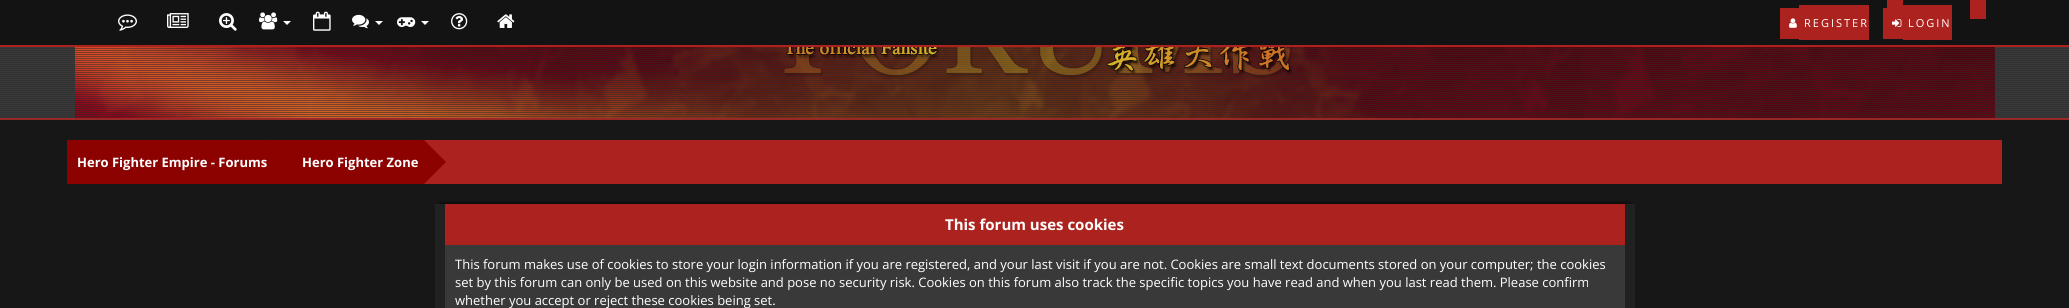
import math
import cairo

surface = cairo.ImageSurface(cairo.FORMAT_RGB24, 2069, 308)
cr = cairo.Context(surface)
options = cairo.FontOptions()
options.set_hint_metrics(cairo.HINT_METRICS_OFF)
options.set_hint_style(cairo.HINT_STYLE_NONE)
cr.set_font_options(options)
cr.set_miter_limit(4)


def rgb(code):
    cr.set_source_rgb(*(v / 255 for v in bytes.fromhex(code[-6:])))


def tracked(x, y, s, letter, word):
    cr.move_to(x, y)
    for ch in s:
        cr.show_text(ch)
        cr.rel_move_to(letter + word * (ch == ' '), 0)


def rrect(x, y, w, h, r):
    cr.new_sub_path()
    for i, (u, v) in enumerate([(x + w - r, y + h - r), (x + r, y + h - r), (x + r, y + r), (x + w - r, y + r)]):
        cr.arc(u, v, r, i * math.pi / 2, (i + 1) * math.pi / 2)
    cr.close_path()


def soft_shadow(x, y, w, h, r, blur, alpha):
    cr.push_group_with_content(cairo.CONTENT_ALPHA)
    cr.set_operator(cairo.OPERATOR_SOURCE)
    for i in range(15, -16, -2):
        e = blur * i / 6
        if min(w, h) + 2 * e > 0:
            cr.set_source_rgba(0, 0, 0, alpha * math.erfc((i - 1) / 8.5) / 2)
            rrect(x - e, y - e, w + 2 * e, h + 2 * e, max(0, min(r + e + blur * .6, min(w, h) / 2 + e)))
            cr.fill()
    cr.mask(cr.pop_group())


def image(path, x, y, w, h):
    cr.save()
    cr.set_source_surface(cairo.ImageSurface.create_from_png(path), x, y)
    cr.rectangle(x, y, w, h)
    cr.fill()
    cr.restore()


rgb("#171717")
cr.paint()
rgb("#131313")
cr.rectangle(0, 0, 2069, 45)
cr.fill()
rgb("#ac221f")
cr.rectangle(0, 45, 2069, 2)
cr.fill()
image("img/1.png", 118, 14, 19, 17)
image("img/2.png", 167, 13, 22, 15)
image("img/3.png", 219, 13, 18, 18)
image("img/4.png", 259, 12, 19, 18)
rgb("#ffffff")
cr.new_path()
cr.move_to(283, 21)
cr.line_to(291, 21)
cr.line_to(287, 25)
cr.close_path()
cr.fill()
image("img/5.png", 313, 11, 18, 20)
image("img/6.png", 352, 14, 17, 15)
cr.new_path()
cr.move_to(375, 21)
cr.line_to(383, 21)
cr.line_to(379, 25)
cr.close_path()
cr.fill()
image("img/7.png", 397, 17, 19, 10)
cr.new_path()
cr.move_to(421, 21)
cr.line_to(429, 21)
cr.line_to(425, 25)
cr.close_path()
cr.fill()
image("img/8.png", 451, 13, 17, 17)
image("img/9.png", 497, 14, 18, 14)
for x, y, w, h, color in [
    (1780, 8, 19, 31, "#ac221f"),
    (1799, 5, 70, 35, "#ac221f"),
    (1887, 0, 16, 8, "#ac221f"),
]:
    rgb(color)
    cr.rectangle(x, y, w, h)
    cr.fill()
image("img/10.png", 1789, 18, 8, 10)
for x, y, w, h, color in [
    (1883, 8, 20, 31, "#ac221f"),
    (1903, 5, 49, 35, "#ac221f"),
    (1970, 0, 16, 19, "#ac221f"),
]:
    rgb(color)
    cr.rectangle(x, y, w, h)
    cr.fill()
image("img/11.png", 1892, 19, 10, 8)
rgb("#393939")
cr.rectangle(0, 47, 2069, 71)
cr.fill()
image("img/12.png", 75, 47, 1920, 71)
rgb("#962825")
cr.rectangle(0, 118, 2069, 2)
cr.fill()
image("img/13.png", 0, 48, 2069, 69)
image("img/14.png", 783, 47, 510, 32)
for x, y, w, h, color in [
    (424, 140, 1578, 44, "#ac221f"),
    (67, 140, 204, 44, "#8c0200"),
    (272, 140, 151, 44, "#8c0200"),
]:
    rgb(color)
    cr.rectangle(x, y, w, h)
    cr.fill()
cr.new_path()
cr.move_to(271, 185)
cr.line_to(271, 139)
cr.line_to(294, 162)
cr.close_path()
cr.fill()
cr.new_path()
cr.move_to(423, 185)
cr.line_to(423, 139)
cr.line_to(446, 162)
cr.close_path()
cr.fill()
rgb("#000000")
soft_shadow(440, 204, 1190, 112, 0, 2.5, 1)
for x, y, w, h, color in [
    (435, 204, 1200, 104, "#212121"),
    (445, 204, 1180, 41, "#ac221f"),
    (445, 245, 1180, 63, "#393939"),
]:
    rgb(color)
    cr.rectangle(x, y, w, h)
    cr.fill()
cr.select_font_face("Open Sans")
cr.set_font_size(11)
rgb("#ffffff")
tracked(1804, 27, "REGISTER", 2, 0)
tracked(1908, 27, "LOGIN", 2, 0)
cr.select_font_face("Open Sans", cairo.FONT_SLANT_NORMAL, cairo.FONT_WEIGHT_BOLD)
cr.set_font_size(13)
cr.move_to(77, 167)
cr.show_text("Hero Fighter Empire - Forums")
cr.move_to(302, 167)
cr.show_text("Hero Fighter Zone")
cr.set_font_size(15)
cr.move_to(945, 230)
cr.show_text("This forum uses cookies")
cr.select_font_face("Open Sans")
cr.set_font_size(13)
for x, y, s in [
    (455, 269, "This forum makes use of cookies to store your login information if you are registered, and your last visit if you are not. Cookies are small text documents stored on your computer; the cookies"),
    (455, 287, "set by this forum can only be used on this website and pose no security risk. Cookies on this forum also track the specific topics you have read and when you last read them. Please confirm"),
    (455, 305, "whether you accept or reject these cookies being set."),
]:
    cr.move_to(x, y)
    cr.show_text(s)
surface.write_to_png("page.png")
